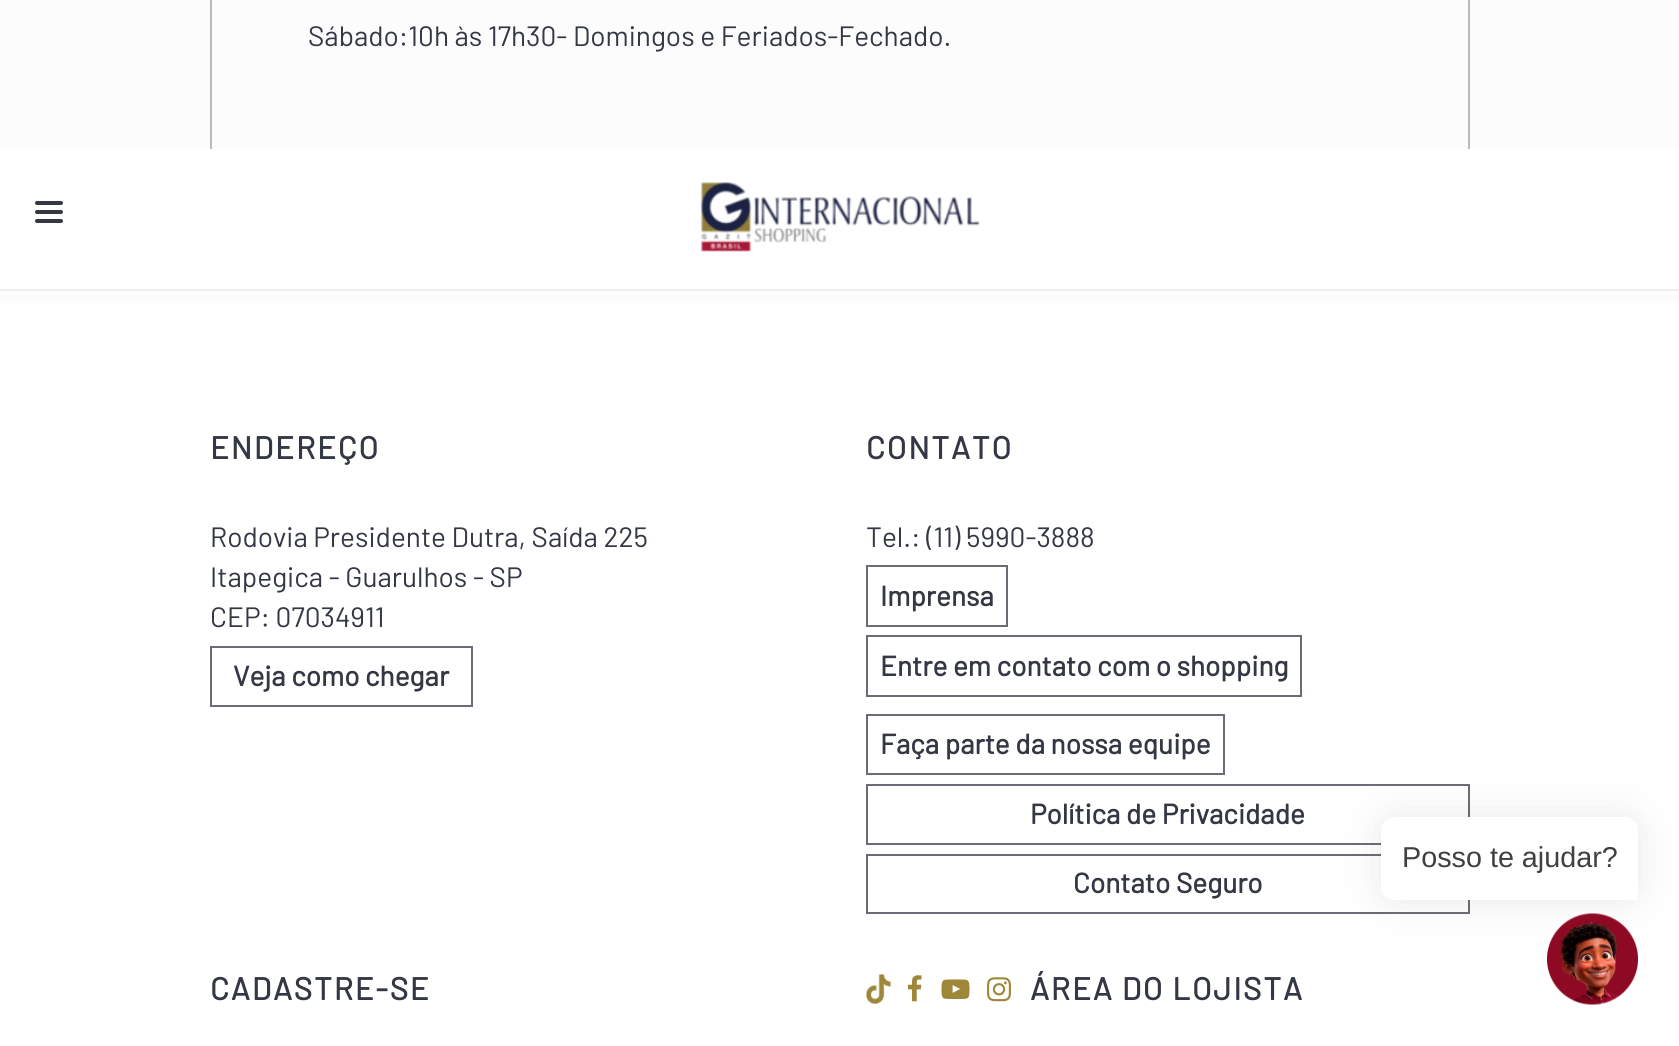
import math
import cairo

surface = cairo.ImageSurface(cairo.FORMAT_RGB24, 1679, 1046)
cr = cairo.Context(surface)
options = cairo.FontOptions()
options.set_hint_metrics(cairo.HINT_METRICS_OFF)
options.set_hint_style(cairo.HINT_STYLE_NONE)
cr.set_font_options(options)
cr.set_miter_limit(4)


def rgb(code):
    cr.set_source_rgb(*(v / 255 for v in bytes.fromhex(code[-6:])))


def tracked(x, y, s, letter, word):
    cr.move_to(x, y)
    for ch in s:
        cr.show_text(ch)
        cr.rel_move_to(letter + word * (ch == ' '), 0)


def rrect(x, y, w, h, r):
    cr.new_sub_path()
    for i, (u, v) in enumerate([(x + w - r, y + h - r), (x + r, y + h - r), (x + r, y + r), (x + w - r, y + r)]):
        cr.arc(u, v, r, i * math.pi / 2, (i + 1) * math.pi / 2)
    cr.close_path()


def soft_shadow(x, y, w, h, r, blur, alpha):
    cr.push_group_with_content(cairo.CONTENT_ALPHA)
    cr.set_operator(cairo.OPERATOR_SOURCE)
    for i in range(15, -16, -2):
        e = blur * i / 6
        if min(w, h) + 2 * e > 0:
            cr.set_source_rgba(0, 0, 0, alpha * math.erfc((i - 1) / 8.5) / 2)
            rrect(x - e, y - e, w + 2 * e, h + 2 * e, max(0, min(r + e + blur * .6, min(w, h) / 2 + e)))
            cr.fill()
    cr.mask(cr.pop_group())


def image(path, x, y, w, h):
    cr.save()
    cr.set_source_surface(cairo.ImageSurface.create_from_png(path), x, y)
    cr.rectangle(x, y, w, h)
    cr.fill()
    cr.restore()


rgb("#ffffff")
cr.paint()
rgb("#fcfcfc")
cr.rectangle(0, 0, 1679, 303)
cr.fill()
cr.rectangle(211, -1, 1258, 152)
rgb("#bbbbbb")
cr.stroke()
rgb("#ffffff")
cr.rectangle(0, 149, 1679, 140)
cr.fill()
rgb("#eeeeee")
cr.rectangle(0, 289, 1679, 2)
cr.fill()
rgb("#343744")
rrect(35, 210, 28, 4, 2)
cr.fill()
rrect(35, 201, 28, 4, 2)
cr.fill()
rrect(35, 219, 28, 4, 2)
cr.fill()
image("img/1.png", 700, 182, 280, 70)
cr.rectangle(211, 647, 261, 59)
rgb("#6a6c76")
cr.stroke()
cr.rectangle(867, 566, 140, 60)
cr.stroke()
cr.rectangle(867, 636, 434, 60)
cr.stroke()
cr.rectangle(867, 715, 357, 59)
cr.stroke()
cr.rectangle(867, 785, 602, 59)
cr.stroke()
cr.rectangle(867, 855, 602, 58)
cr.stroke()
image("img/2.png", 866, 974, 25, 30)
image("img/3.png", 908, 975, 14, 27)
image("img/4.png", 941, 979, 29, 21)
image("img/5.png", 987, 977, 24, 25)
rgb("#403f42")
soft_shadow(1381, 817, 257, 83, 14, 21, 0.12)
rgb("#ffffff")
cr.new_path()
cr.move_to(1395, 817)
cr.line_to(1624, 817)
cr.curve_to(1631.5, 817, 1638, 823.5, 1638, 831)
cr.line_to(1638, 900)
cr.line_to(1395, 900)
cr.curve_to(1387.5, 900, 1381, 893.5, 1381, 886)
cr.line_to(1381, 831)
cr.curve_to(1381, 823.5, 1387.5, 817, 1395, 817)
cr.close_path()
cr.fill()
image("img/6.png", 1547, 913, 91, 92)
cr.select_font_face("Barlow")
cr.set_font_size(28)
rgb("#343744")
cr.move_to(308, 46)
cr.show_text("Sábado:10h às 17h30- Domingos e Feriados-Fechado.")
cr.select_font_face("Barlow", cairo.FONT_SLANT_NORMAL, cairo.FONT_WEIGHT_BOLD)
cr.set_font_size(31.5)
tracked(210, 459, "ENDEREÇO", 1.75, 0)
cr.select_font_face("Barlow")
cr.set_font_size(28)
for x, y, s in [
    (210, 547, "Rodovia Presidente Dutra, Saída 225"),
    (210, 587, "Itapegica - Guarulhos - SP"),
    (210, 627, "CEP: 07034911"),
]:
    cr.move_to(x, y)
    cr.show_text(s)
cr.select_font_face("Barlow", cairo.FONT_SLANT_NORMAL, cairo.FONT_WEIGHT_BOLD)
cr.move_to(233, 686)
cr.show_text("Veja como chegar")
cr.set_font_size(31.5)
tracked(866, 459, "CONTATO", 1.75, 0)
cr.select_font_face("Barlow")
cr.set_font_size(28)
cr.move_to(866, 547)
cr.show_text("Tel.: (11) 5990-3888")
cr.select_font_face("Barlow", cairo.FONT_SLANT_NORMAL, cairo.FONT_WEIGHT_BOLD)
for x, y, s in [
    (880, 606, "Imprensa"),
    (880, 676, "Entre em contato com o shopping"),
    (880, 754, "Faça parte da nossa equipe"),
    (1030, 824, "Política de Privacidade"),
    (1073, 893, "Contato Seguro"),
]:
    cr.move_to(x, y)
    cr.show_text(s)
cr.set_font_size(31.5)
tracked(210, 1000, "CADASTRE-SE", 1.75, 0)
tracked(1030, 1000, "ÁREA DO LOJISTA", 1.75, 0)
cr.select_font_face("Liberation Sans")
cr.set_font_size(28.75)
rgb("#403f42")
cr.move_to(1402, 867)
cr.show_text("Posso te ajudar?")
surface.write_to_png("page.png")
